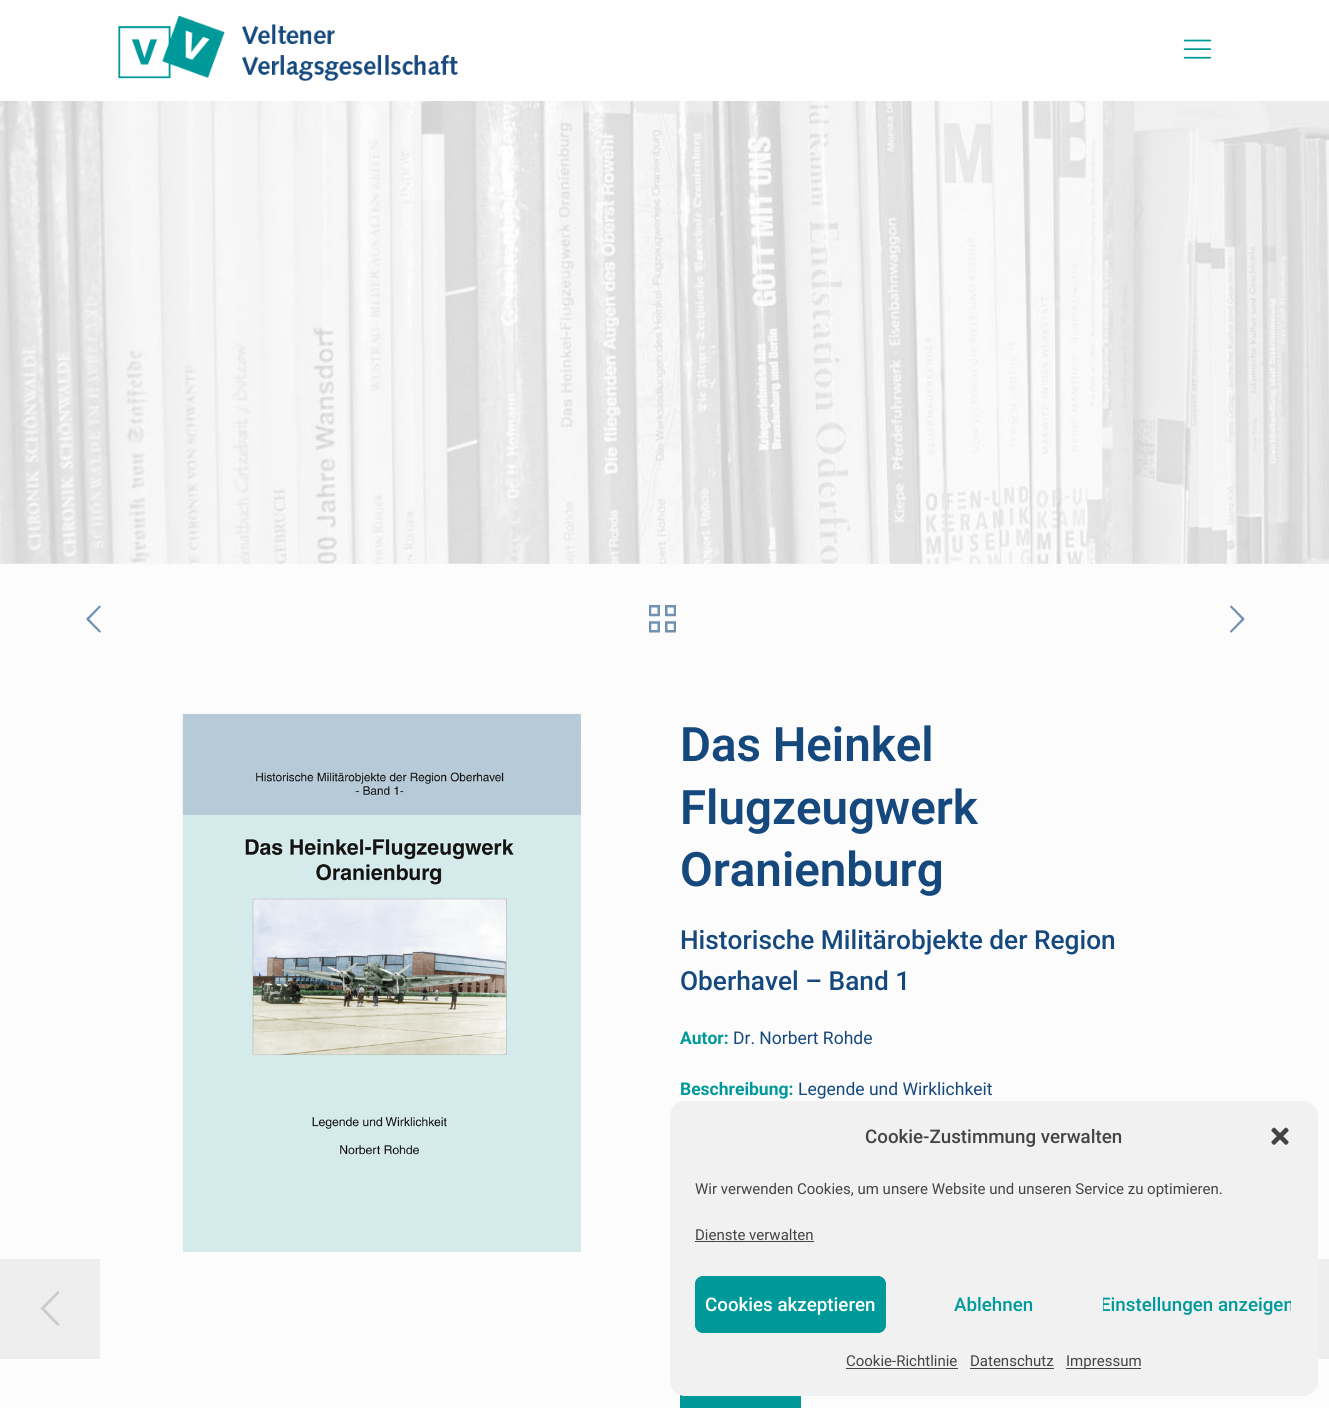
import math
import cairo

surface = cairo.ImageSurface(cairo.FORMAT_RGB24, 1329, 1408)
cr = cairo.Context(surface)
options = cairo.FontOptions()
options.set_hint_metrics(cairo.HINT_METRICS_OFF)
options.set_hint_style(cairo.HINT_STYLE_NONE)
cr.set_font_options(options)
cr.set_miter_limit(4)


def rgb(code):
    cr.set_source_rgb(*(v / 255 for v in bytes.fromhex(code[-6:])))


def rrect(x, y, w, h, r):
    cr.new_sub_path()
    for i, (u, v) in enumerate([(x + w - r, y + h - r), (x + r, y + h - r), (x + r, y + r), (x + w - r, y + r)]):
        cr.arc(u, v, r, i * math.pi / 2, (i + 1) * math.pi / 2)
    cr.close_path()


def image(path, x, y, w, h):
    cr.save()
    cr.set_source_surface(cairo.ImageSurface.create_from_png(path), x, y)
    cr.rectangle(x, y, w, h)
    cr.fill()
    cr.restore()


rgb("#fcfcfc")
cr.paint()
image("img/1.png", 0, 101, 1329, 463)
rgb("#ffffff")
cr.rectangle(0, 0, 1329, 101)
cr.fill()
image("img/2.png", 118, 15, 340, 66)
image("img/3.png", 1183, 39, 29, 20)
image("img/4.png", 86, 605, 15, 28)
image("img/5.png", 649, 605, 27, 28)
image("img/6.png", 1230, 605, 15, 28)
image("img/7.png", 182, 713, 399, 539)
rgb("#00999a")
cr.rectangle(680, 1395, 121, 13)
cr.fill()
rgb("#eeeeee")
cr.rectangle(0, 1259, 100, 100)
cr.fill()
rgb("#cccccc")
cr.new_path()
cr.move_to(59, 1323.5)
cr.line_to(59.5, 1324.5)
cr.curve_to(58.5, 1328, 54.5, 1323, 54, 1322.5)
cr.line_to(41, 1309)
cr.line_to(40.5, 1308)
cr.line_to(57, 1291.5)
cr.line_to(58, 1291)
cr.curve_to(61.5, 1292, 57, 1295.5, 56.5, 1296)
cr.line_to(44.5, 1308.5)
cr.close_path()
cr.fill()
rgb("#f1f1f1")
rrect(670, 1101, 648, 295, 15)
cr.fill()
image("img/8.png", 1271, 1127, 18, 18)
rgb("#444444")
cr.rectangle(695, 1241, 119, 1)
cr.fill()
rgb("#00999a")
rrect(695.5, 1276.5, 190, 56, 7.5)
cr.fill_preserve()
cr.set_line_width(1)
cr.stroke()
for x, y, w, h, color in [
    (846, 1368, 112, 1, "#444444"),
    (970, 1368, 84, 1, "#444444"),
    (1066, 1368, 75, 1, "#444444"),
    (1318, 1259, 11, 100, "#eeeeee"),
]:
    rgb(color)
    cr.rectangle(x, y, w, h)
    cr.fill()
cr.select_font_face("Roboto SemiBold")
cr.set_font_size(47.5)
rgb("#15497d")
for x, y, s in [
    (680, 761, "Das Heinkel"),
    (680, 824, "Flugzeugwerk"),
    (680, 886, "Oranienburg"),
]:
    cr.move_to(x, y)
    cr.show_text(s)
cr.select_font_face("Roboto Medium")
cr.set_font_size(26.25)
cr.move_to(680, 949)
cr.show_text("Historische Militärobjekte der Region")
cr.move_to(680, 990)
cr.show_text("Oberhavel – Band 1")
cr.select_font_face("Roboto", cairo.FONT_SLANT_NORMAL, cairo.FONT_WEIGHT_BOLD)
cr.set_font_size(17.5)
rgb("#00999a")
cr.move_to(680, 1044)
cr.show_text("Autor:")
cr.select_font_face("Roboto")
rgb("#15497d")
cr.move_to(733, 1044)
cr.show_text("Dr. Norbert Rohde")
cr.select_font_face("Roboto", cairo.FONT_SLANT_NORMAL, cairo.FONT_WEIGHT_BOLD)
rgb("#00999a")
cr.move_to(680, 1095)
cr.show_text("Beschreibung:")
cr.select_font_face("Roboto")
rgb("#15497d")
cr.move_to(798, 1095)
cr.show_text("Legende und Wirklichkeit")
cr.select_font_face("Roboto Medium")
cr.set_font_size(18.75)
rgb("#444444")
cr.move_to(865, 1143)
cr.show_text("Cookie-Zustimmung verwalten")
cr.select_font_face("Roboto")
cr.set_font_size(15)
cr.move_to(695, 1194)
cr.show_text("Wir verwenden Cookies, um unsere Website und unseren Service zu optimieren.")
cr.move_to(695, 1240)
cr.show_text("Dienste verwalten")
cr.select_font_face("Roboto Medium")
cr.set_font_size(18.75)
rgb("#ffffff")
cr.move_to(705, 1311)
cr.show_text("Cookies akzeptieren")
rgb("#00999a")
cr.move_to(954, 1311)
cr.show_text("Ablehnen")
cr.save()
rrect(1103, 1278, 188, 53, 6)
cr.clip()
cr.move_to(1100, 1311)
cr.show_text("Einstellungen anzeigen")
cr.restore()
cr.select_font_face("Roboto")
cr.set_font_size(15)
rgb("#444444")
for x, y, s in [
    (846, 1366, "Cookie-Richtlinie"),
    (970, 1366, "Datenschutz"),
    (1066, 1366, "Impressum"),
]:
    cr.move_to(x, y)
    cr.show_text(s)
surface.write_to_png("page.png")
